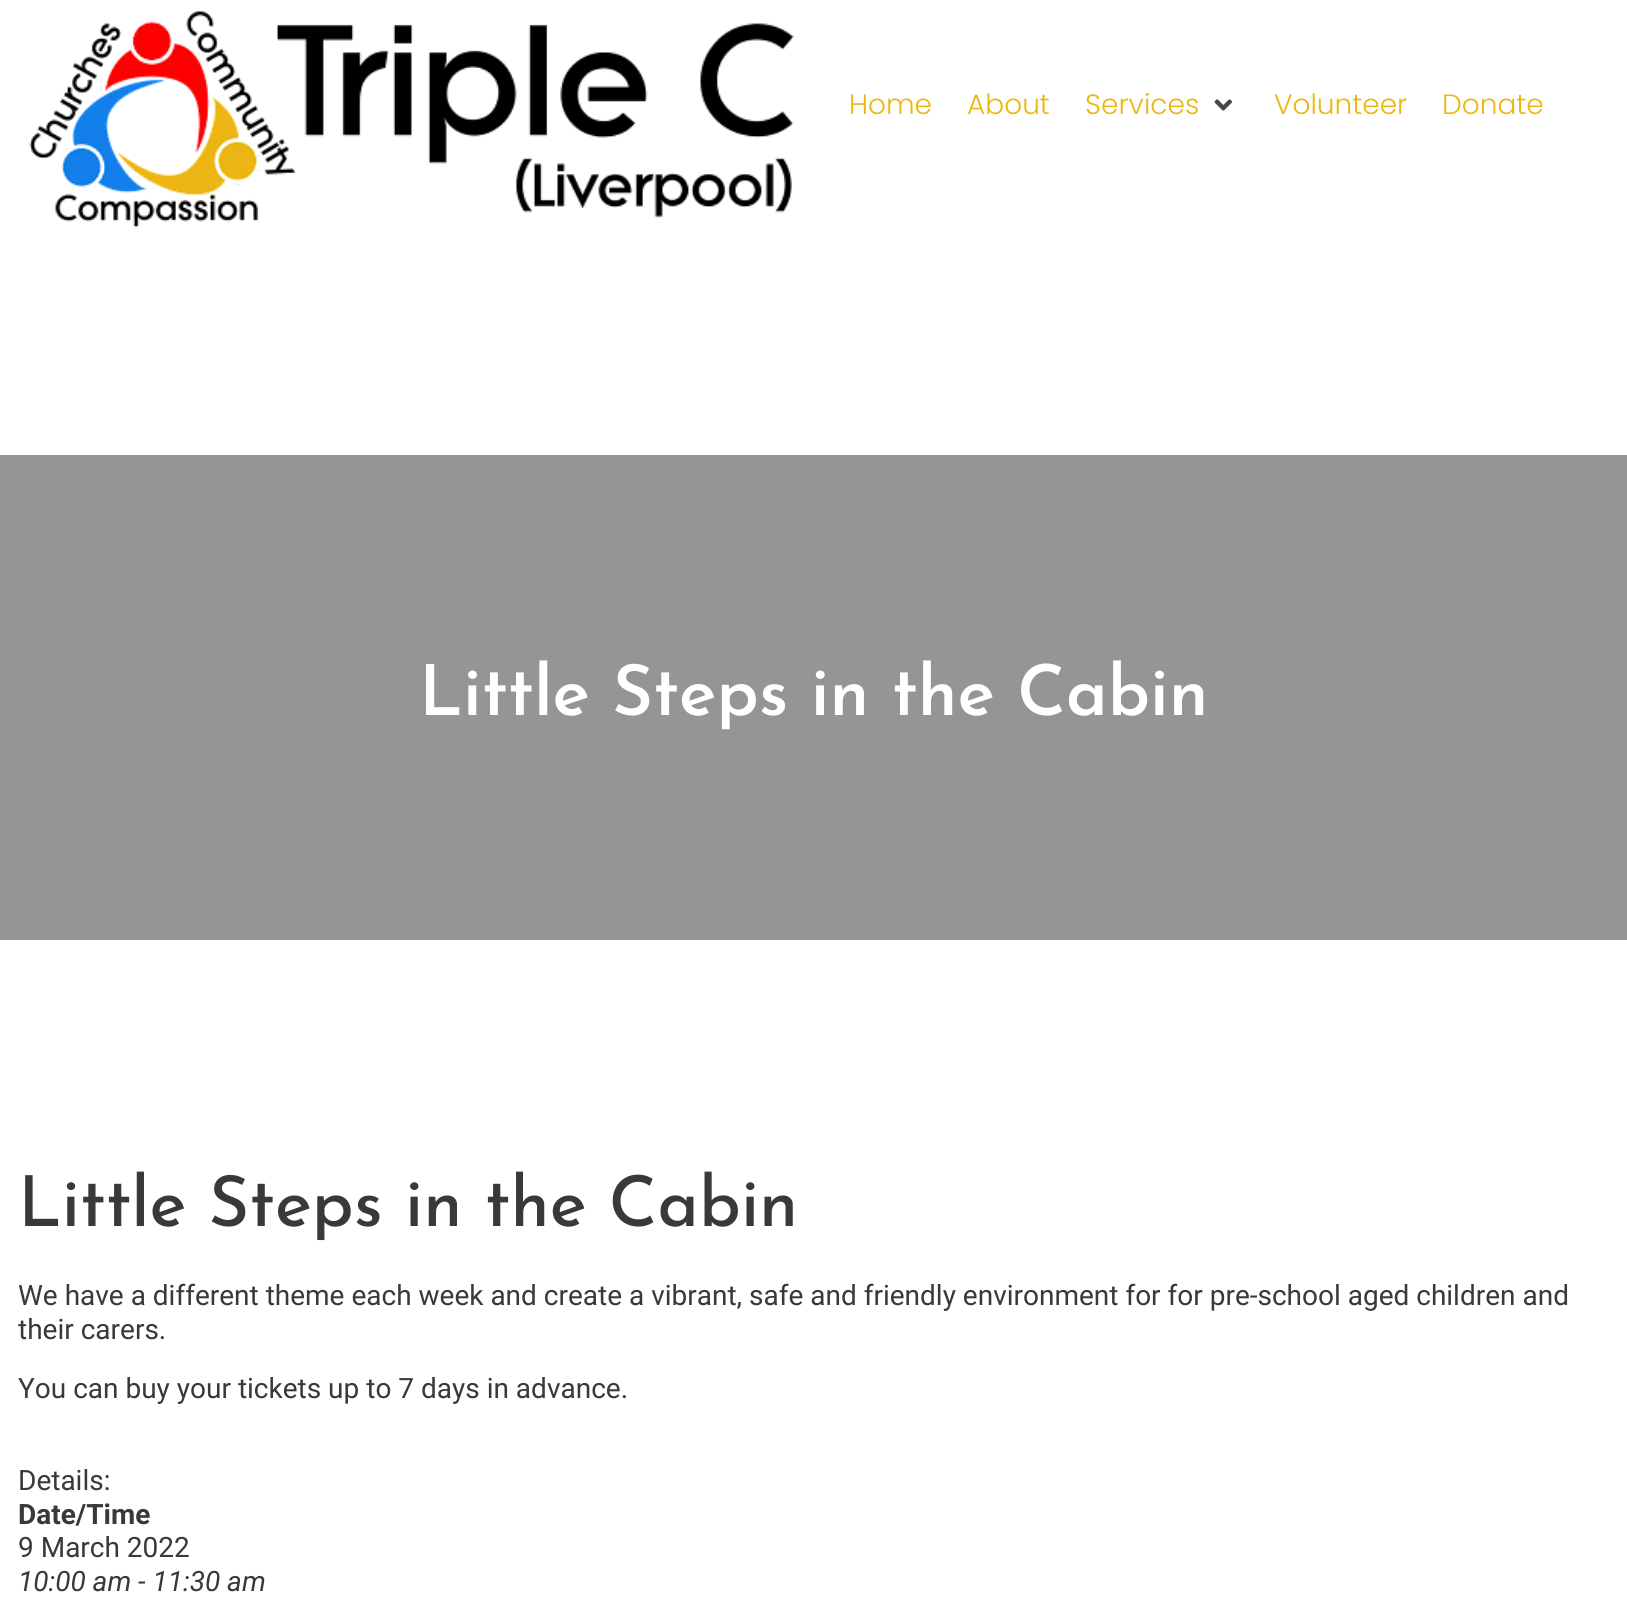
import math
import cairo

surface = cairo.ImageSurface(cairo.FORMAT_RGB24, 1627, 1617)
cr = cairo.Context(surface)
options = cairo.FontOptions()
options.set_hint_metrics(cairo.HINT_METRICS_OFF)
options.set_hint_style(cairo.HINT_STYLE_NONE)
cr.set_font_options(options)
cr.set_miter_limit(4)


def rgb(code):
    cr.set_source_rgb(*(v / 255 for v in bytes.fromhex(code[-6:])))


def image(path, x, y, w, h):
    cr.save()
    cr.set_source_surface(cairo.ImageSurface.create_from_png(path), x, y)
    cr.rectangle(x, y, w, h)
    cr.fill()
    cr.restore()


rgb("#ffffff")
cr.paint()
image("img/1.png", 29, 11, 765, 217)
image("img/2.png", 1214, 99, 18, 12)
rgb("#959595")
cr.rectangle(0, 455, 1627, 485)
cr.fill()
cr.select_font_face("Poppins Light")
cr.set_font_size(28)
rgb("#ecb60d")
for x, y, s in [
    (849, 114, "Home"),
    (967, 114, "About"),
    (1085, 114, "Services"),
    (1274, 114, "Volunteer"),
    (1442, 114, "Donate"),
]:
    cr.move_to(x, y)
    cr.show_text(s)
cr.select_font_face("Josefin Sans SemiBold")
cr.set_font_size(70)
rgb("#ffffff")
cr.move_to(419, 715)
cr.show_text("Little Steps in the Cabin")
cr.select_font_face("Josefin Sans Medium")
rgb("#393939")
cr.move_to(18, 1226)
cr.show_text("Little Steps in the Cabin")
cr.select_font_face("Roboto")
cr.set_font_size(28)
for x, y, s in [
    (18, 1305, "We have a different theme each week and create a vibrant, safe and friendly environment for for pre-school aged children and"),
    (18, 1339, "their carers."),
    (18, 1398, "You can buy your tickets up to 7 days in advance."),
    (18, 1490, "Details:"),
]:
    cr.move_to(x, y)
    cr.show_text(s)
cr.select_font_face("Roboto", cairo.FONT_SLANT_NORMAL, cairo.FONT_WEIGHT_BOLD)
cr.move_to(18, 1524)
cr.show_text("Date/Time")
cr.select_font_face("Roboto")
cr.move_to(18, 1557)
cr.show_text("9 March 2022")
cr.select_font_face("Roboto", cairo.FONT_SLANT_ITALIC)
cr.move_to(18, 1591)
cr.show_text("10:00 am - 11:30 am")
surface.write_to_png("page.png")
